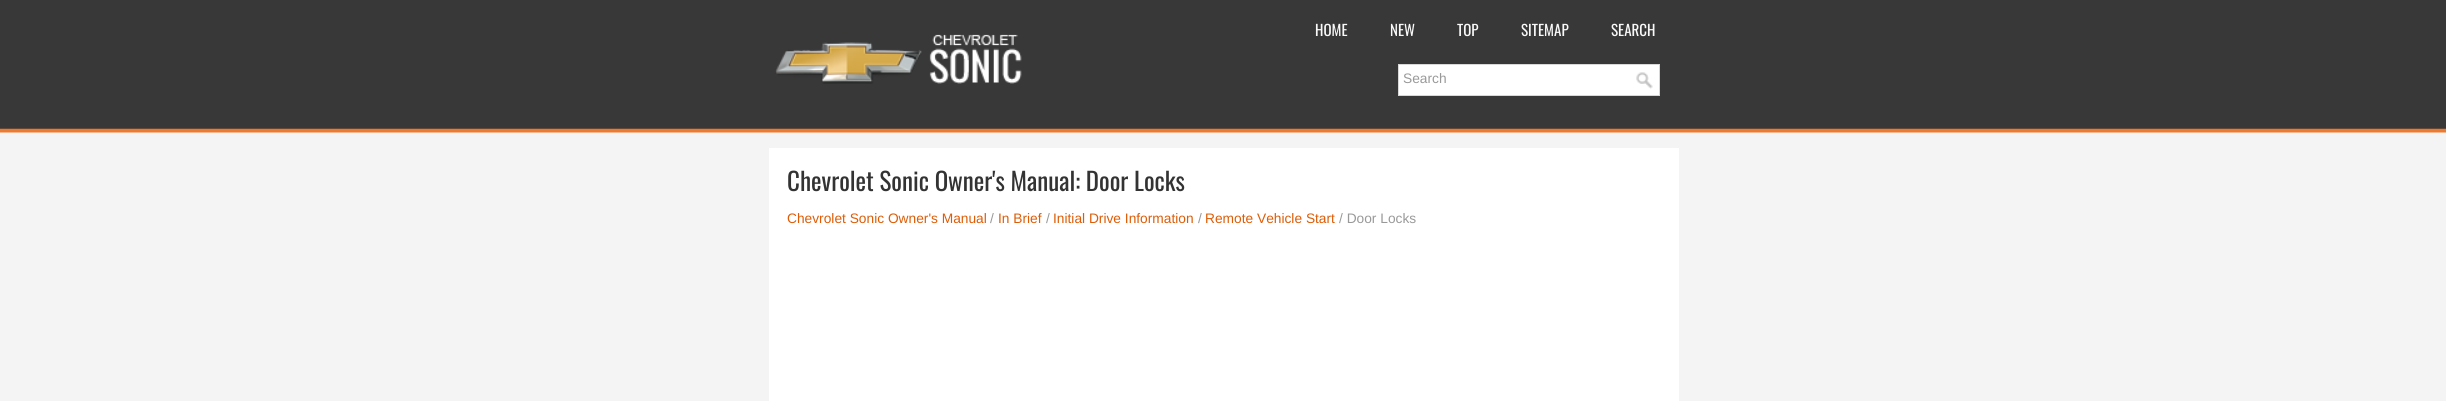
import math
import cairo

surface = cairo.ImageSurface(cairo.FORMAT_RGB24, 2446, 401)
cr = cairo.Context(surface)
options = cairo.FontOptions()
options.set_hint_metrics(cairo.HINT_METRICS_OFF)
options.set_hint_style(cairo.HINT_STYLE_NONE)
cr.set_font_options(options)
cr.set_miter_limit(4)


def rgb(code):
    cr.set_source_rgb(*(v / 255 for v in bytes.fromhex(code[-6:])))


def image(path, x, y, w, h):
    cr.save()
    cr.set_source_surface(cairo.ImageSurface.create_from_png(path), x, y)
    cr.rectangle(x, y, w, h)
    cr.fill()
    cr.restore()


rgb("#f4f4f4")
cr.paint()
image("img/1.png", 0, 0, 2446, 133)
image("img/2.png", 775, 34, 247, 50)
rgb("#ffffff")
cr.rectangle(1398.5, 64.5, 261, 31)
cr.fill_preserve()
rgb("#d8d8d8")
cr.set_line_width(1)
cr.stroke()
image("img/3.png", 1636, 72, 17, 17)
rgb("#ffffff")
cr.rectangle(769, 148, 910, 253)
cr.fill()
cr.select_font_face("Oswald")
cr.set_font_size(15)
rgb("#f9f9f9")
for x, y, s in [
    (1315, 36, "HOME"),
    (1390, 36, "NEW"),
    (1457, 36, "TOP"),
    (1521, 36, "SITEMAP"),
    (1611, 36, "SEARCH"),
]:
    cr.move_to(x, y)
    cr.show_text(s)
cr.select_font_face("Liberation Sans")
cr.set_font_size(13.75)
rgb("#999999")
cr.move_to(1403, 83)
cr.show_text("Search")
cr.select_font_face("Oswald")
cr.set_font_size(25)
rgb("#333333")
cr.move_to(787, 191)
cr.show_text("Chevrolet Sonic Owner's Manual: Door Locks")
cr.select_font_face("Liberation Sans")
cr.set_font_size(13.75)
rgb("#de5c06")
cr.move_to(787, 223)
cr.show_text("Chevrolet Sonic Owner's Manual")
rgb("#999999")
cr.move_to(990, 223)
cr.show_text("/")
rgb("#de5c06")
cr.move_to(998, 223)
cr.show_text("In Brief")
rgb("#999999")
cr.move_to(1046, 223)
cr.show_text("/")
rgb("#de5c06")
cr.move_to(1053, 223)
cr.show_text("Initial Drive Information")
rgb("#999999")
cr.move_to(1198, 223)
cr.show_text("/")
rgb("#de5c06")
cr.move_to(1205, 223)
cr.show_text("Remote Vehicle Start")
rgb("#999999")
cr.move_to(1339, 223)
cr.show_text("/ Door Locks")
surface.write_to_png("page.png")
